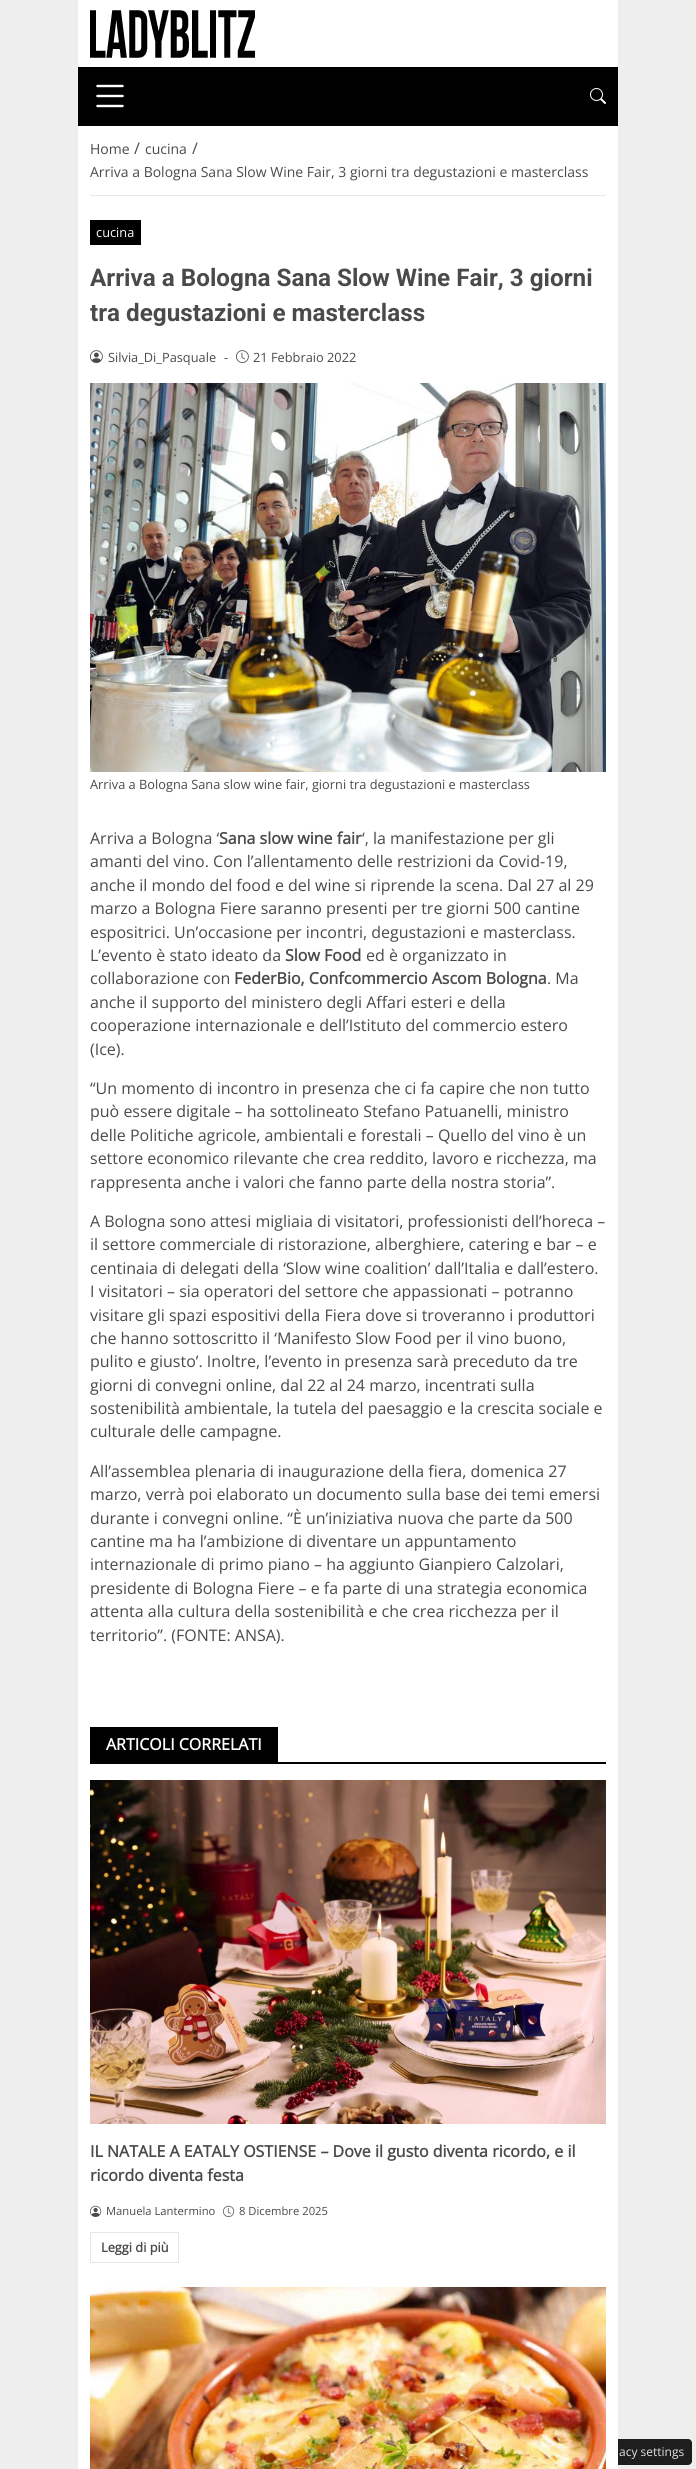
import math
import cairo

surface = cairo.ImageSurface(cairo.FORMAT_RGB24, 696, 2469)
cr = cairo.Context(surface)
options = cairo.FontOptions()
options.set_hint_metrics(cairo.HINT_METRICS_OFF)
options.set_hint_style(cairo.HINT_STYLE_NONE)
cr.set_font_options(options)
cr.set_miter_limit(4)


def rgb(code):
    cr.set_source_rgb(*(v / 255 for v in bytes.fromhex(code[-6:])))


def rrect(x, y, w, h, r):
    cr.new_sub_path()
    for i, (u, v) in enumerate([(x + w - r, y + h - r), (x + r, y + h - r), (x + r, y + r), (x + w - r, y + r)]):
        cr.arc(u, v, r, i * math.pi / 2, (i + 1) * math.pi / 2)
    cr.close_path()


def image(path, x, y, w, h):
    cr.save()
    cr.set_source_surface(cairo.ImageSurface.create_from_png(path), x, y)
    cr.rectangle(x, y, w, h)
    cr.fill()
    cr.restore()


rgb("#eeeeee")
cr.paint()
rgb("#ffffff")
cr.rectangle(78, 0, 540, 67)
cr.fill()
image("img/1.png", 90, 10, 165, 48)
rgb("#000000")
cr.rectangle(78, 67, 540, 59)
cr.fill()
image("img/2.png", 96, 84, 28, 24)
image("img/3.png", 590, 88, 16, 16)
rgb("#1e1e1e")
rrect(544, 2439, 148, 26, 4)
cr.fill()
for x, y, w, h, color in [
    (78, 126, 540, 2343, "#ffffff"),
    (90, 195, 516, 1, "#e6e6e6"),
    (90, 220, 51, 25, "#000000"),
]:
    rgb(color)
    cr.rectangle(x, y, w, h)
    cr.fill()
image("img/4.png", 90, 350, 13, 13)
image("img/5.png", 236, 350, 13, 13)
image("img/6.png", 90, 383, 516, 389)
cr.rectangle(90, 1762, 516, 2)
cr.fill()
cr.rectangle(90, 1727, 188, 35)
cr.fill()
image("img/7.png", 90, 1780, 516, 344)
image("img/8.png", 90, 2205, 12, 12)
image("img/9.png", 223, 2205, 12, 12)
cr.rectangle(90.5, 2232.5, 88, 30)
rgb("#e6e6e6")
cr.set_line_width(1)
cr.stroke()
image("img/10.png", 90, 2287, 516, 182)
cr.select_font_face("Open Sans")
cr.set_font_size(14)
rgb("#4a4a4a")
cr.move_to(90, 154)
cr.show_text("Home")
cr.set_font_size(16)
cr.move_to(134, 154)
cr.show_text("/")
cr.set_font_size(14)
cr.move_to(145, 154)
cr.show_text("cucina")
cr.set_font_size(16)
cr.move_to(192, 154)
cr.show_text("/")
cr.set_font_size(14)
cr.move_to(90, 177)
cr.show_text("Arriva a Bologna Sana Slow Wine Fair, 3 giorni tra degustazioni e masterclass")
cr.set_font_size(12.8)
rgb("#ffffff")
cr.move_to(96, 237)
cr.show_text("cucina")
cr.select_font_face("Roboto", cairo.FONT_SLANT_NORMAL, cairo.FONT_WEIGHT_BOLD)
cr.set_font_size(24.25)
rgb("#4a4a4a")
cr.move_to(90, 286)
cr.show_text("Arriva a Bologna Sana Slow Wine Fair, 3 giorni")
cr.move_to(90, 321)
cr.show_text("tra degustazioni e masterclass")
cr.select_font_face("Open Sans")
cr.set_font_size(12.8)
for x, y, s in [
    (108, 362, "Silvia_Di_Pasquale"),
    (224, 362, "-"),
    (253, 362, "21 Febbraio 2022"),
    (90, 789, "Arriva a Bologna Sana slow wine fair, giorni tra degustazioni e masterclass"),
]:
    cr.move_to(x, y)
    cr.show_text(s)
cr.set_font_size(16)
cr.move_to(90, 844)
cr.show_text("Arriva a Bologna ‘")
cr.select_font_face("Open Sans", cairo.FONT_SLANT_NORMAL, cairo.FONT_WEIGHT_BOLD)
cr.move_to(219, 844)
cr.show_text("Sana slow wine fair")
cr.select_font_face("Open Sans")
for x, y, s in [
    (362, 844, "‘, la manifestazione per gli"),
    (90, 867, "amanti del vino. Con l’allentamento delle restrizioni da Covid-19,"),
    (90, 891, "anche il mondo del food e del wine si riprende la scena. Dal 27 al 29"),
    (90, 914, "marzo a Bologna Fiere saranno presenti per tre giorni 500 cantine"),
    (90, 938, "espositrici. Un’occasione per incontri, degustazioni e masterclass."),
    (90, 961, "L’evento è stato ideato da"),
]:
    cr.move_to(x, y)
    cr.show_text(s)
cr.select_font_face("Open Sans", cairo.FONT_SLANT_NORMAL, cairo.FONT_WEIGHT_BOLD)
cr.move_to(285, 961)
cr.show_text("Slow Food")
cr.select_font_face("Open Sans")
cr.move_to(366, 961)
cr.show_text("ed è organizzato in")
cr.move_to(90, 984)
cr.show_text("collaborazione con")
cr.select_font_face("Open Sans", cairo.FONT_SLANT_NORMAL, cairo.FONT_WEIGHT_BOLD)
cr.move_to(234, 984)
cr.show_text("FederBio, Confcommercio Ascom Bologna")
cr.select_font_face("Open Sans")
for x, y, s in [
    (547, 984, ". Ma"),
    (90, 1008, "anche il supporto del ministero degli Affari esteri e della"),
    (90, 1031, "cooperazione internazionale e dell’Istituto del commercio estero"),
    (90, 1055, "(Ice)."),
    (90, 1094, "“Un momento di incontro in presenza che ci fa capire che non tutto"),
    (90, 1117, "può essere digitale – ha sottolineato Stefano Patuanelli, ministro"),
    (90, 1141, "delle Politiche agricole, ambientali e forestali – Quello del vino è un"),
    (90, 1164, "settore economico rilevante che crea reddito, lavoro e ricchezza, ma"),
    (90, 1188, "rappresenta anche i valori che fanno parte della nostra storia”."),
    (90, 1227, "A Bologna sono attesi migliaia di visitatori, professionisti dell’horeca –"),
    (90, 1250, "il settore commerciale di ristorazione, alberghiere, catering e bar – e"),
    (90, 1274, "centinaia di delegati della ‘Slow wine coalition’ dall’Italia e dall’estero."),
    (90, 1297, "I visitatori – sia operatori del settore che appassionati – potranno"),
    (90, 1321, "visitare gli spazi espositivi della Fiera dove si troveranno i produttori"),
    (90, 1344, "che hanno sottoscritto il ‘Manifesto Slow Food per il vino buono,"),
    (90, 1367, "pulito e giusto’. Inoltre, l’evento in presenza sarà preceduto da tre"),
    (90, 1391, "giorni di convegni online, dal 22 al 24 marzo, incentrati sulla"),
    (90, 1414, "sostenibilità ambientale, la tutela del paesaggio e la crescita sociale e"),
    (90, 1437, "culturale delle campagne."),
    (90, 1477, "All’assemblea plenaria di inaugurazione della fiera, domenica 27"),
    (90, 1500, "marzo, verrà poi elaborato un documento sulla base dei temi emersi"),
    (90, 1524, "durante i convegni online. “È un’iniziativa nuova che parte da 500"),
    (90, 1547, "cantine ma ha l’ambizione di diventare un appuntamento"),
    (90, 1570, "internazionale di primo piano – ha aggiunto Gianpiero Calzolari,"),
    (90, 1594, "presidente di Bologna Fiere – e fa parte di una strategia economica"),
    (90, 1617, "attenta alla cultura della sostenibilità e che crea ricchezza per il"),
    (90, 1641, "territorio”. (FONTE: ANSA)."),
]:
    cr.move_to(x, y)
    cr.show_text(s)
cr.select_font_face("Open Sans", cairo.FONT_SLANT_NORMAL, cairo.FONT_WEIGHT_BOLD)
rgb("#ffffff")
cr.move_to(106, 1750)
cr.show_text("ARTICOLI CORRELATI")
rgb("#4a4a4a")
cr.move_to(90, 2157)
cr.show_text("IL NATALE A EATALY OSTIENSE – Dove il gusto diventa ricordo, e il")
cr.move_to(90, 2181)
cr.show_text("ricordo diventa festa")
cr.select_font_face("Open Sans")
cr.set_font_size(11.25)
cr.move_to(106, 2215)
cr.show_text("Manuela Lantermino")
cr.move_to(239, 2215)
cr.show_text("8 Dicembre 2025")
cr.select_font_face("Open Sans", cairo.FONT_SLANT_NORMAL, cairo.FONT_WEIGHT_BOLD)
cr.set_font_size(12.8)
cr.move_to(101, 2252)
cr.show_text("Leggi di più")
cr.select_font_face("Open Sans")
cr.set_font_size(12)
rgb("#e3e1e1")
cr.move_to(619, 2456)
cr.show_text("acy settings")
surface.write_to_png("page.png")
